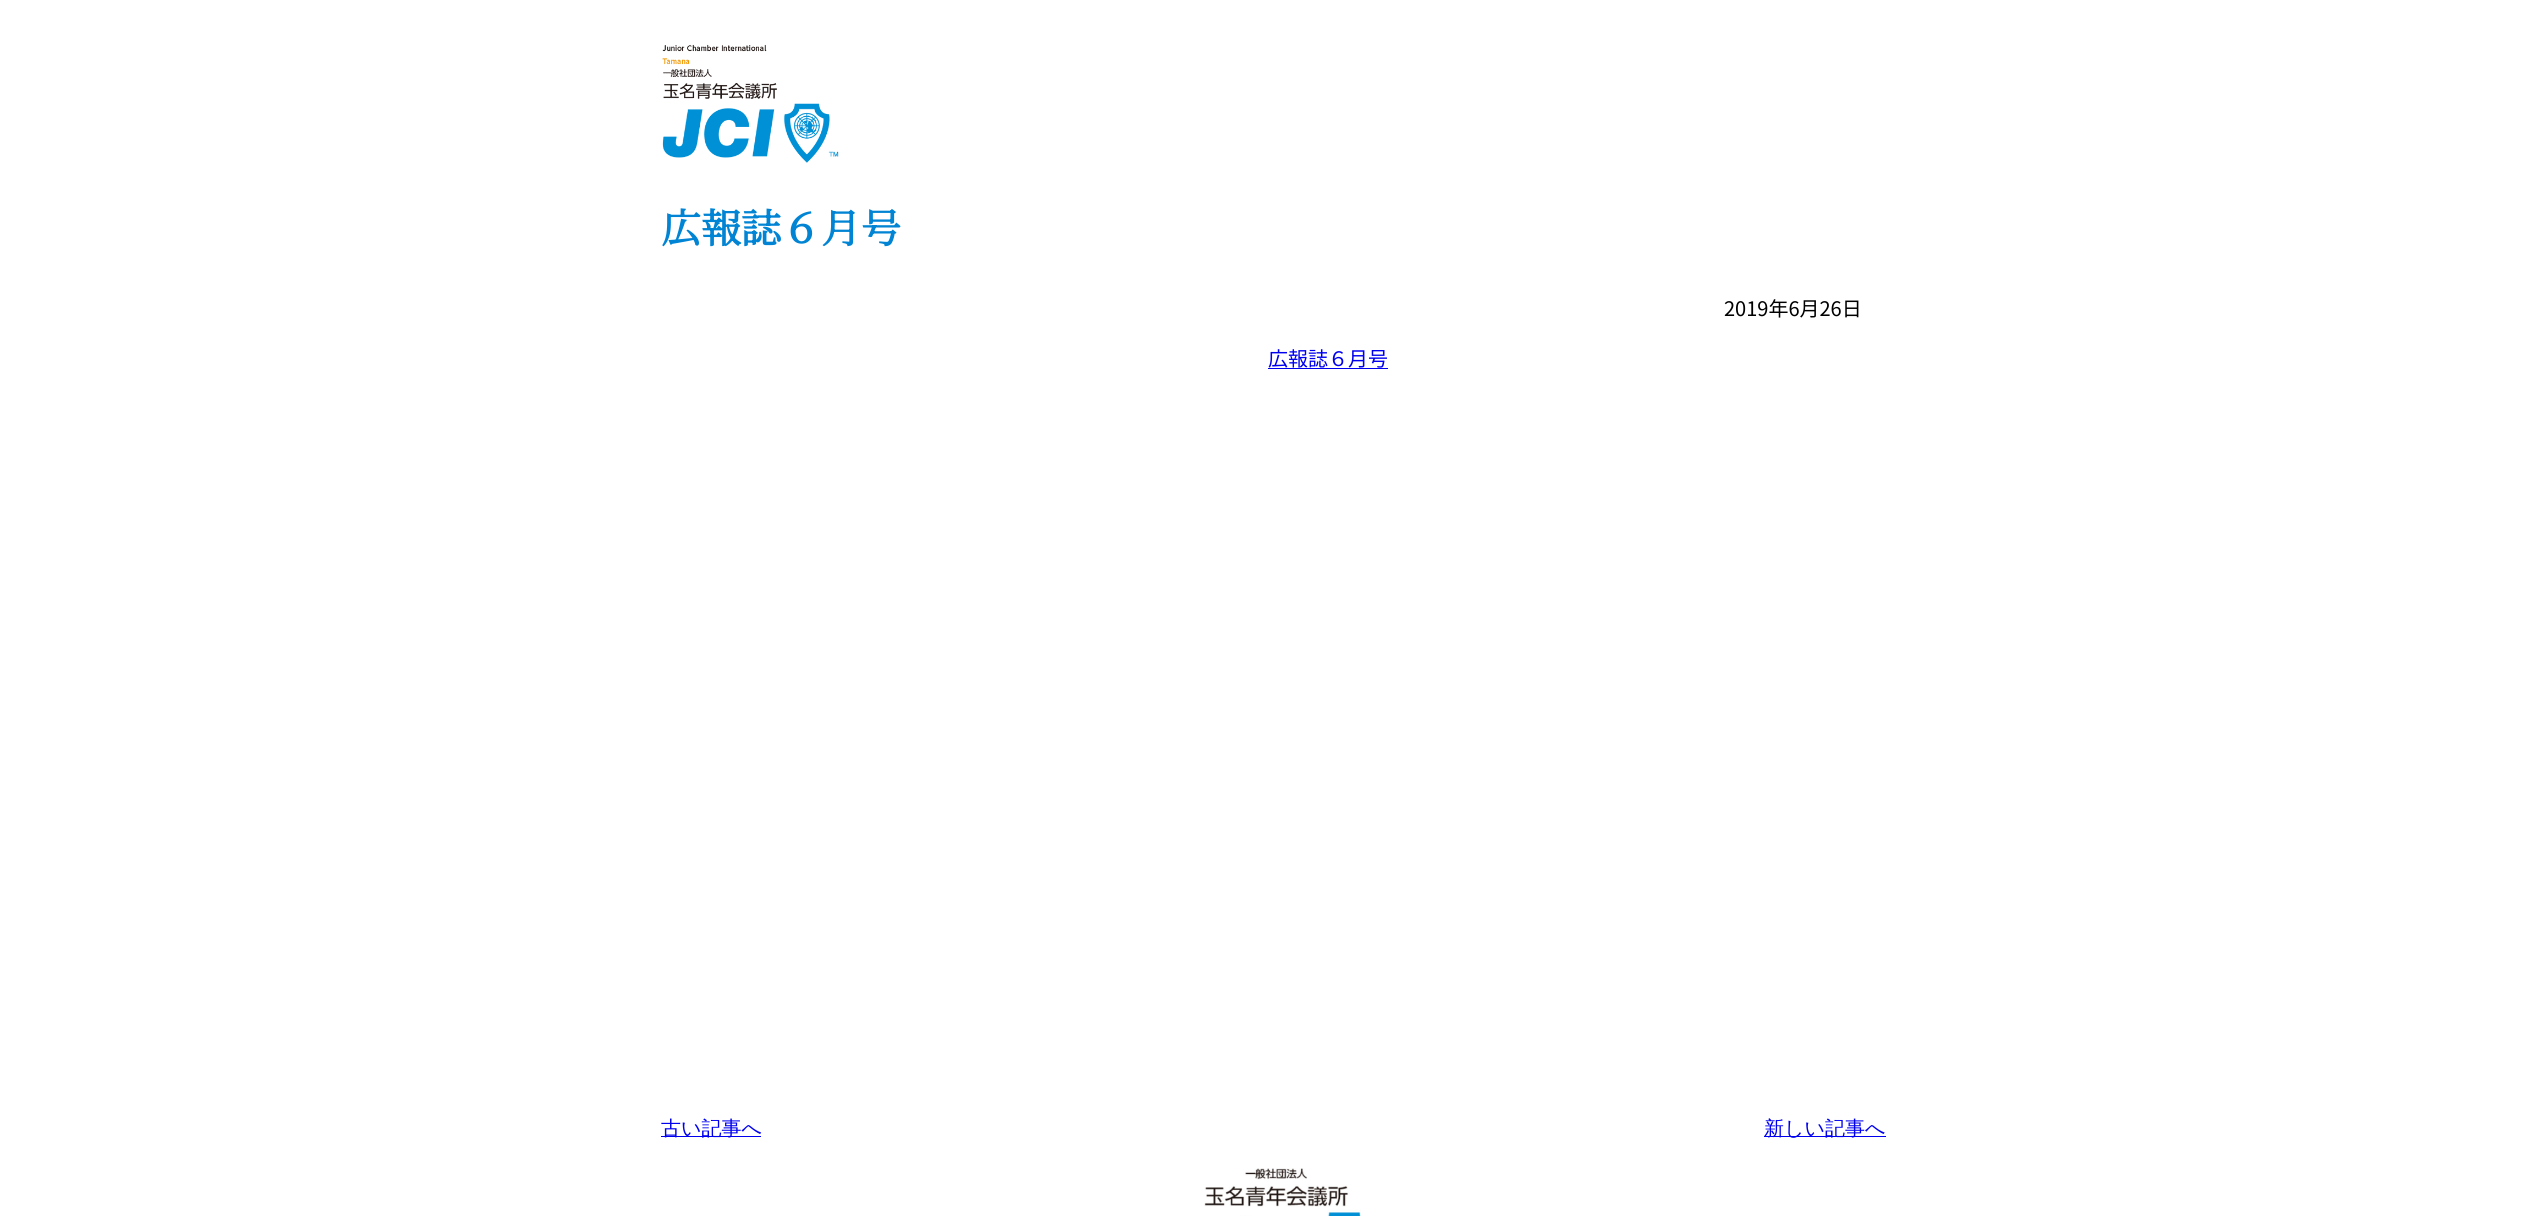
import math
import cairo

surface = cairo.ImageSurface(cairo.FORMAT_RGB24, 2546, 1216)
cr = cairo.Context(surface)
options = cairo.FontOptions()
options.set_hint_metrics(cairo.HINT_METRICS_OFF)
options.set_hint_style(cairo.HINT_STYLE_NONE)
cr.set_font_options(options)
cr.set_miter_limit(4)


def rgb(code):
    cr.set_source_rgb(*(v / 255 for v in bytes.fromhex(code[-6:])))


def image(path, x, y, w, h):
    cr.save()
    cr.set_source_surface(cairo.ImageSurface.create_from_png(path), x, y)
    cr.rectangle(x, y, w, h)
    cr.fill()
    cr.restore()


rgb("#ffffff")
cr.paint()
image("img/1.png", 662, 44, 177, 119)
for x, y, w, h, color in [
    (1268, 368, 120, 1, "#0000ee"),
    (661, 1136, 100, 1, "#0000ee"),
    (1764, 1136, 122, 1, "#0000ee"),
]:
    rgb(color)
    cr.rectangle(x, y, w, h)
    cr.fill()
image("img/2.png", 1204, 1168, 157, 48)
cr.select_font_face("Noto Serif JP", cairo.FONT_SLANT_NORMAL, cairo.FONT_WEIGHT_BOLD)
cr.set_font_size(40)
rgb("#0084d3")
cr.move_to(661, 243)
cr.show_text("広報誌６月号")
cr.select_font_face("Noto Sans JP Thin")
cr.set_font_size(20)
rgb("#000000")
cr.move_to(1724, 316)
cr.show_text("2019年6月26日")
rgb("#0000ee")
cr.move_to(1268, 366)
cr.show_text("広報誌６月号")
cr.select_font_face("WenQuanYi Zen Hei Medium")
cr.move_to(661, 1135)
cr.show_text("古い記事へ")
cr.move_to(1764, 1135)
cr.show_text("新しい記事へ")
surface.write_to_png("page.png")
